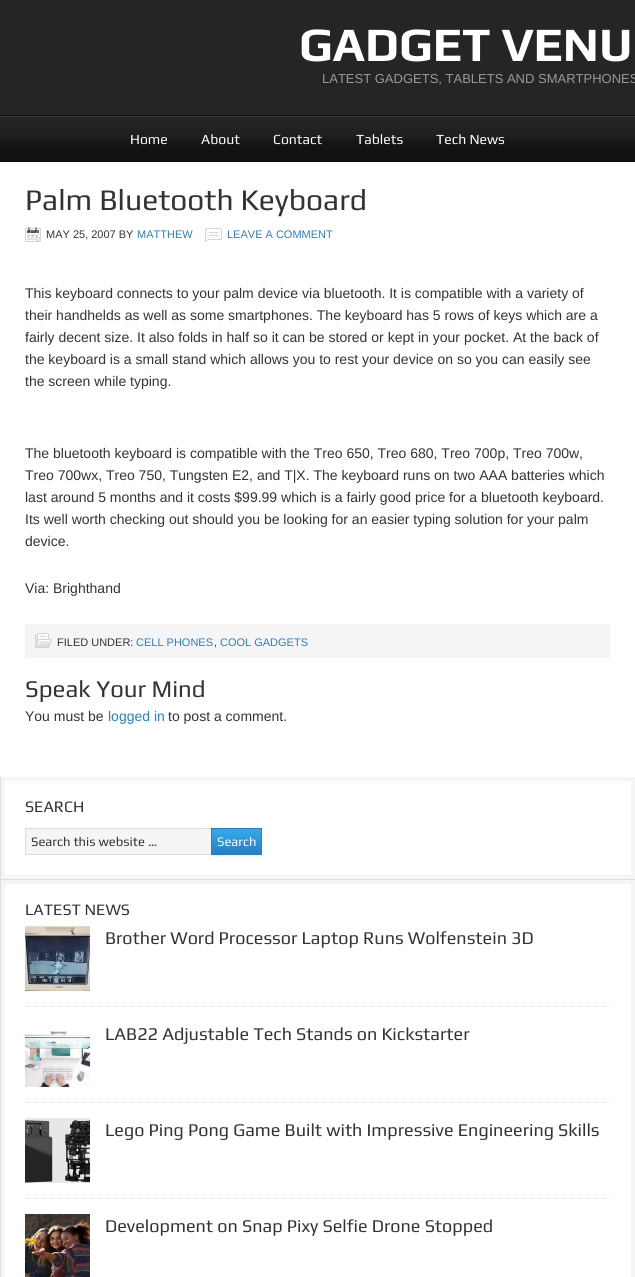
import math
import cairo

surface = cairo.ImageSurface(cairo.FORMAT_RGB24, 635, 1277)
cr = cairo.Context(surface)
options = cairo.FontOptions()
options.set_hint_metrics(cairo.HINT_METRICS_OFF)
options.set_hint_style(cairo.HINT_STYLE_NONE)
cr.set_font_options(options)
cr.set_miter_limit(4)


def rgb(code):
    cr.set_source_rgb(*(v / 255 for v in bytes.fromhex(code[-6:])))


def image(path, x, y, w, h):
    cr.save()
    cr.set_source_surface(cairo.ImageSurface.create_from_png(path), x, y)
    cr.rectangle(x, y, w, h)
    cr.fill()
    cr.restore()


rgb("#252525")
cr.paint()
image("img/1.png", 0, 116, 635, 45)
for x, y, w, h, color in [
    (0, 115, 635, 1, "#111111"),
    (0, 161, 635, 1, "#111111"),
    (0, 162, 635, 1115, "#ffffff"),
]:
    rgb(color)
    cr.rectangle(x, y, w, h)
    cr.fill()
image("img/2.png", 25, 227, 16, 15)
image("img/3.png", 205, 228, 17, 14)
rgb("#f5f5f5")
cr.rectangle(25, 624, 585, 34)
cr.fill()
image("img/4.png", 35, 633, 17, 15)
rgb("#dddddd")
cr.rectangle(0, 879, 635, 1)
cr.fill()
cr.rectangle(0, 777, 1, 500)
cr.fill()
cr.rectangle(3, 779, 630, 98)
rgb("#f5f5f5")
cr.set_line_width(4)
cr.stroke()
cr.rectangle(26, 829, 185, 25)
cr.fill()
cr.rectangle(25.5, 828.5, 191, 26)
rgb("#dddddd")
cr.set_line_width(1)
cr.stroke()
image("img/5.png", 212, 829, 49, 25)
cr.rectangle(211.5, 828.5, 50, 26)
rgb("#2780c7")
cr.stroke()
cr.rectangle(3, 882, 630, 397)
rgb("#f5f5f5")
cr.set_line_width(4)
cr.stroke()
cr.new_path()
cr.move_to(25, 1006.5)
cr.line_to(611, 1006.5)
rgb("#dddddd")
cr.set_line_width(1)
cr.set_dash([1, 1])
cr.stroke()
image("img/6.png", 25, 926, 65, 65)
cr.new_path()
cr.move_to(25, 1102.5)
cr.line_to(611, 1102.5)
cr.stroke()
image("img/7.png", 25, 1030, 65, 57)
cr.new_path()
cr.move_to(25, 1198.5)
cr.line_to(611, 1198.5)
cr.stroke()
image("img/8.png", 25, 1118, 65, 65)
image("img/9.png", 25, 1214, 65, 63)
cr.select_font_face("Play", cairo.FONT_SLANT_NORMAL, cairo.FONT_WEIGHT_BOLD)
cr.set_font_size(48)
rgb("#ffffff")
cr.move_to(299, 61)
cr.show_text("GADGET VENU")
cr.select_font_face("Liberation Sans")
cr.set_font_size(13)
rgb("#999999")
cr.move_to(322, 83)
cr.show_text("LATEST GADGETS, TABLETS AND SMARTPHONES")
cr.select_font_face("Play")
cr.set_font_size(14)
rgb("#ffffff")
for x, y, s in [
    (130, 144, "Home"),
    (201, 144, "About"),
    (273, 144, "Contact"),
    (356, 144, "Tablets"),
    (436, 144, "Tech News"),
]:
    cr.move_to(x, y)
    cr.show_text(s)
cr.set_font_size(30)
rgb("#333333")
cr.move_to(25, 210)
cr.show_text("Palm Bluetooth Keyboard")
cr.select_font_face("Liberation Sans")
cr.set_font_size(11)
cr.move_to(46, 238)
cr.show_text("MAY 25, 2007 BY")
rgb("#2780c7")
cr.move_to(137, 238)
cr.show_text("MATTHEW")
cr.move_to(227, 238)
cr.show_text("LEAVE A COMMENT")
cr.set_font_size(14)
rgb("#333333")
for x, y, s in [
    (25, 298, "This keyboard connects to your palm device via bluetooth. It is compatible with a variety of"),
    (25, 320, "their handhelds as well as some smartphones. The keyboard has 5 rows of keys which are a"),
    (25, 342, "fairly decent size. It also folds in half so it can be stored or kept in your pocket. At the back of"),
    (25, 364, "the keyboard is a small stand which allows you to rest your device on so you can easily see"),
    (25, 386, "the screen while typing."),
    (25, 458, "The bluetooth keyboard is compatible with the Treo 650, Treo 680, Treo 700p, Treo 700w,"),
    (25, 480, "Treo 700wx, Treo 750, Tungsten E2, and T|X. The keyboard runs on two AAA batteries which"),
    (25, 502, "last around 5 months and it costs $99.99 which is a fairly good price for a bluetooth keyboard."),
    (25, 524, "Its well worth checking out should you be looking for an easier typing solution for your palm"),
    (25, 546, "device."),
    (25, 593, "Via: Brighthand"),
]:
    cr.move_to(x, y)
    cr.show_text(s)
cr.set_font_size(11)
cr.move_to(57, 646)
cr.show_text("FILED UNDER:")
rgb("#2780c7")
cr.move_to(136, 646)
cr.show_text("CELL PHONES")
rgb("#333333")
cr.move_to(214, 646)
cr.show_text(",")
rgb("#2780c7")
cr.move_to(220, 646)
cr.show_text("COOL GADGETS")
cr.select_font_face("Play")
cr.set_font_size(24)
rgb("#333333")
cr.move_to(25, 697)
cr.show_text("Speak Your Mind")
cr.select_font_face("Liberation Sans")
cr.set_font_size(14)
cr.move_to(25, 721)
cr.show_text("You must be")
rgb("#2780c7")
cr.move_to(108, 721)
cr.show_text("logged in")
rgb("#333333")
cr.move_to(168, 721)
cr.show_text("to post a comment.")
cr.select_font_face("Play")
cr.set_font_size(16)
cr.move_to(25, 812)
cr.show_text("SEARCH")
cr.set_font_size(13)
cr.move_to(31, 846)
cr.show_text("Search this website …")
rgb("#ffffff")
cr.move_to(217, 846)
cr.show_text("Search")
cr.set_font_size(16)
rgb("#333333")
cr.move_to(25, 915)
cr.show_text("LATEST NEWS")
cr.set_font_size(18)
for x, y, s in [
    (105, 944, "Brother Word Processor Laptop Runs Wolfenstein 3D"),
    (105, 1040, "LAB22 Adjustable Tech Stands on Kickstarter"),
    (105, 1136, "Lego Ping Pong Game Built with Impressive Engineering Skills"),
    (105, 1232, "Development on Snap Pixy Selfie Drone Stopped"),
]:
    cr.move_to(x, y)
    cr.show_text(s)
surface.write_to_png("page.png")
